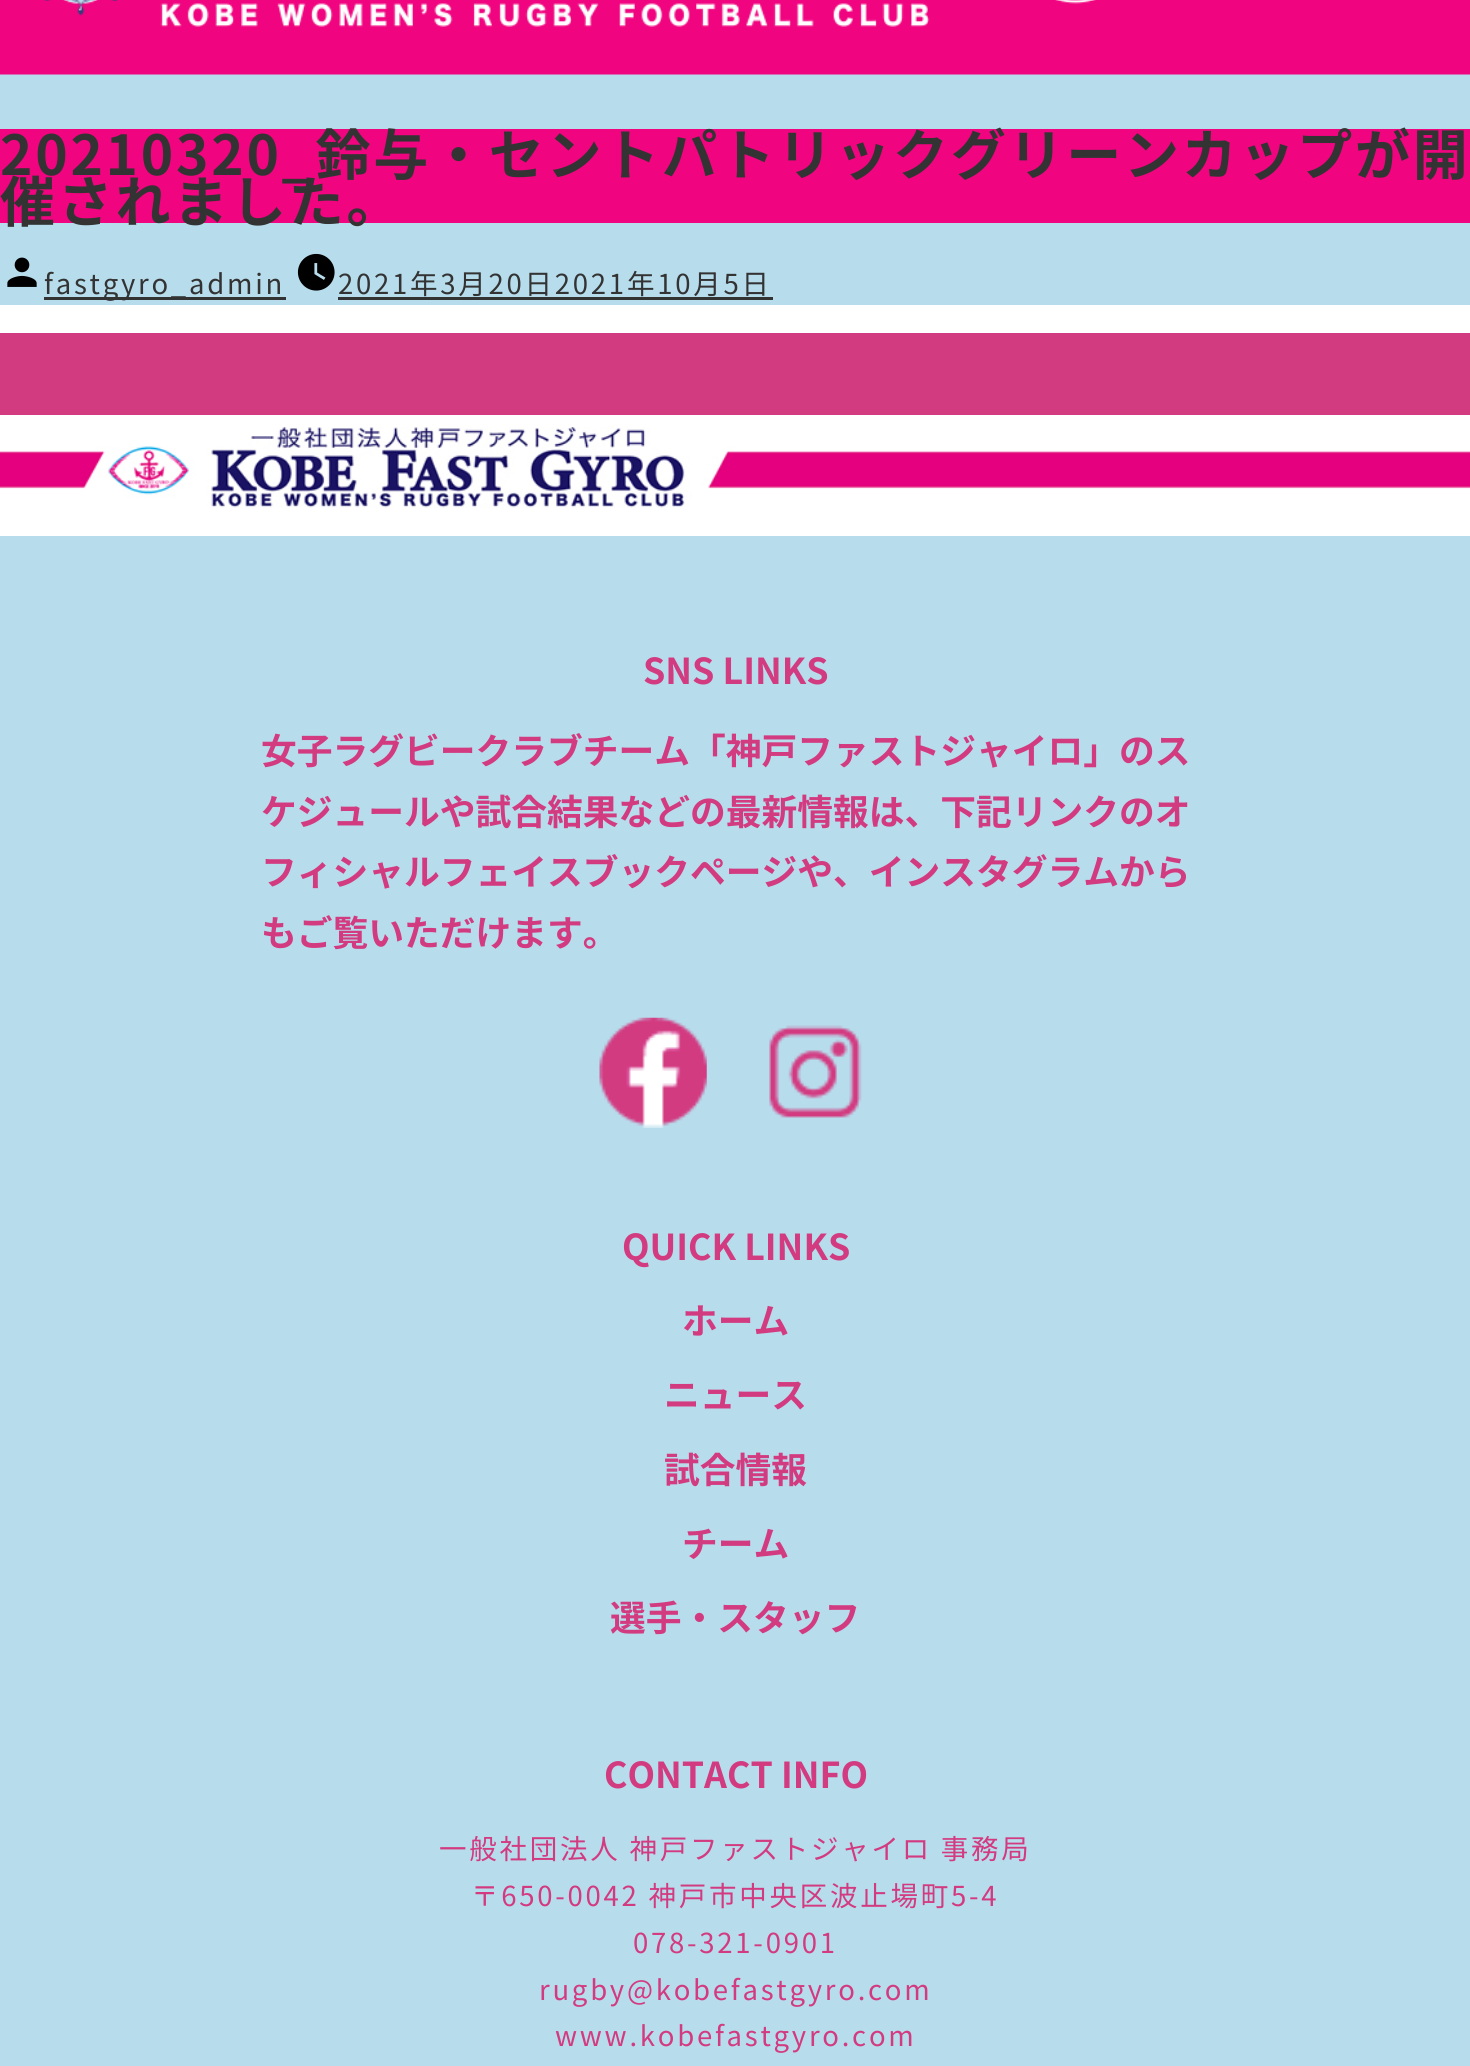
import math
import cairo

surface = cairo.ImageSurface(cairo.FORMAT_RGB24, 1470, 2066)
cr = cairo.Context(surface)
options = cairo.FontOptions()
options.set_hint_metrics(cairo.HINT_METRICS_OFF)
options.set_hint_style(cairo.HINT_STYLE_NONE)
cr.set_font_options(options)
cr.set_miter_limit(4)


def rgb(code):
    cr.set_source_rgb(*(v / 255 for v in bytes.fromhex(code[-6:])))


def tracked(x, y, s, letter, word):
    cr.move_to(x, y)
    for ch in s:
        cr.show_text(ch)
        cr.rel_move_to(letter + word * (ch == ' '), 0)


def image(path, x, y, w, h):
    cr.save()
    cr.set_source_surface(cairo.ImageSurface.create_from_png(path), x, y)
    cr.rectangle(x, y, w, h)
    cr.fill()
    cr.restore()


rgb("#ffffff")
cr.paint()
rgb("#b7dded")
cr.rectangle(0, 74, 1470, 231)
cr.fill()
image("img/1.png", 0, 0, 1470, 75)
rgb("#f0047f")
cr.rectangle(0, 129, 1470, 94)
cr.fill()
image("img/2.png", 7, 257, 30, 30)
rgb("#333333")
cr.rectangle(44, 297, 242, 3)
cr.fill()
image("img/3.png", 297, 253, 38, 38)
for x, y, w, h, color in [
    (338, 297, 435, 3, "#333333"),
    (0, 333, 1470, 82, "#d33b81"),
    (0, 536, 1470, 1530, "#b7dded"),
]:
    rgb(color)
    cr.rectangle(x, y, w, h)
    cr.fill()
image("img/4.png", 0, 427, 1470, 81)
image("img/5.png", 599, 1017, 108, 111)
image("img/6.png", 769, 1025, 93, 93)
cr.select_font_face("Noto Sans JP", cairo.FONT_SLANT_NORMAL, cairo.FONT_WEIGHT_BOLD)
cr.set_font_size(55)
rgb("#333333")
tracked(0, 175, "20210320_鈴与・セントパトリックグリーンカップが開", 2.75, 0)
tracked(0, 222, "催されました。", 2.75, 0)
cr.select_font_face("Noto Sans JP")
cr.set_font_size(27.5)
tracked(44, 294, "fastgyro_admin", 2.75, 0)
tracked(338, 294, "2021年3月20日2021年10月5日", 2.75, 0)
cr.select_font_face("Noto Sans JP", cairo.FONT_SLANT_NORMAL, cairo.FONT_WEIGHT_BOLD)
cr.set_font_size(35.75)
rgb("#d33b81")
for x, y, s in [
    (643, 684, "SNS LINKS"),
    (261, 764, "女子ラグビークラブチーム「神戸ファストジャイロ」のス"),
    (261, 825, "ケジュールや試合結果などの最新情報は、下記リンクのオ"),
    (261, 885, "フィシャルフェイスブックページや、インスタグラムから"),
    (261, 946, "もご覧いただけます。"),
    (622, 1260, "QUICK LINKS"),
    (682, 1334, "ホーム"),
    (664, 1408, "ニュース"),
    (664, 1483, "試合情報"),
    (682, 1557, "チーム"),
    (610, 1631, "選手・スタッフ"),
    (604, 1788, "CONTACT INFO"),
]:
    cr.move_to(x, y)
    cr.show_text(s)
cr.select_font_face("Noto Sans JP")
cr.set_font_size(27.5)
for x, y, s in [
    (439, 1859, "一般社団法人 神戸ファストジャイロ 事務局"),
    (471, 1906, "〒650-0042 神戸市中央区波止場町5-4"),
    (633, 1953, "078-321-0901"),
    (539, 2000, "rugby@kobefastgyro.com"),
    (555, 2046, "www.kobefastgyro.com"),
]:
    tracked(x, y, s, 2.75, 0)
surface.write_to_png("page.png")
